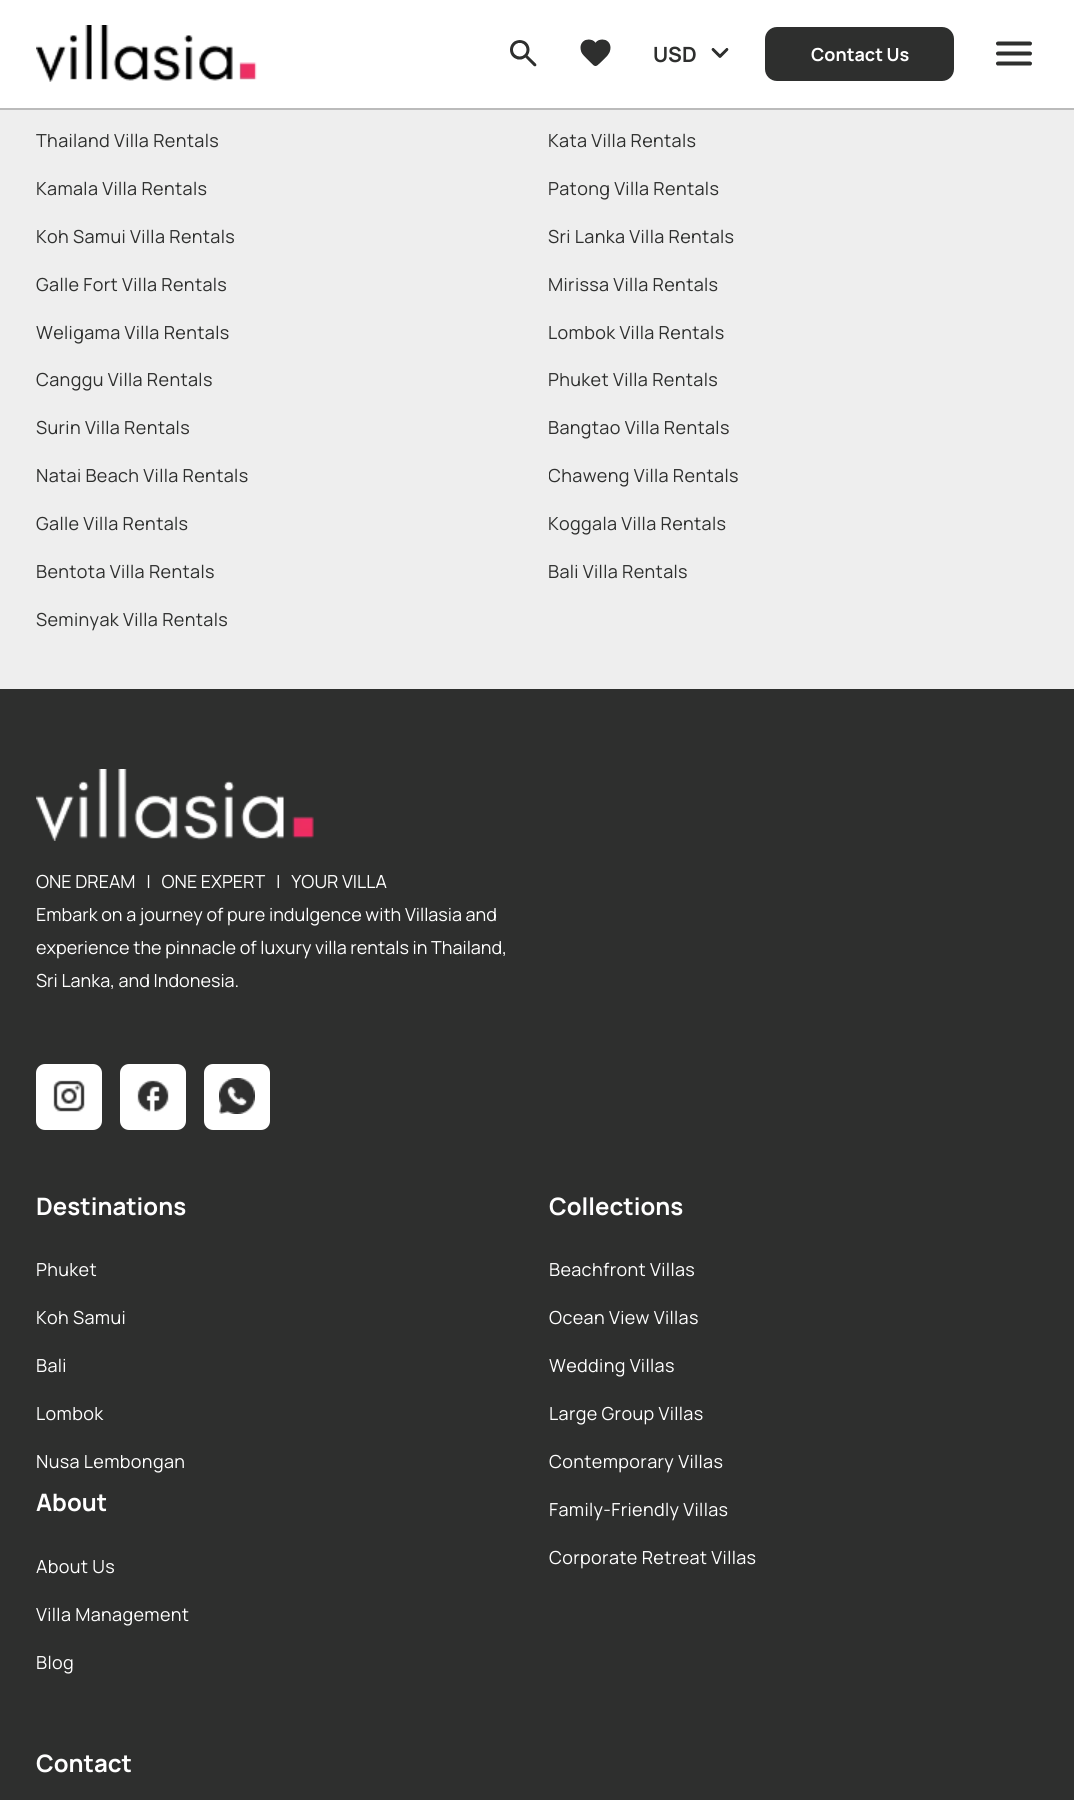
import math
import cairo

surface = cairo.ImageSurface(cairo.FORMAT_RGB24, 1074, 1800)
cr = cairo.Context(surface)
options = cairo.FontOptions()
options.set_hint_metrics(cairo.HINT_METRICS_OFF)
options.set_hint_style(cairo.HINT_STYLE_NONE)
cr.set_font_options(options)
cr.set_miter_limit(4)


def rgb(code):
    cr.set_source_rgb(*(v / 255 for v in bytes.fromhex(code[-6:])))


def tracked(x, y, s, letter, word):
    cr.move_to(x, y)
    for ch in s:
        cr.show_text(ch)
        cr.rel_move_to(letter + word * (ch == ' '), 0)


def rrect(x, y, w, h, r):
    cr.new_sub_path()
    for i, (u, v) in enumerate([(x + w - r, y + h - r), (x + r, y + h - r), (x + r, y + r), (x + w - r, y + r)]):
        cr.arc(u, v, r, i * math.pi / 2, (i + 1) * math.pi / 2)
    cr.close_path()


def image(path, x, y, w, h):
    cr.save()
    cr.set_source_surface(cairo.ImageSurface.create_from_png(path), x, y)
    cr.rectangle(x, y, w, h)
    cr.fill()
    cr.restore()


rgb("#eeeeee")
cr.paint()
rgb("#ffffff")
cr.rectangle(0, 0, 1074, 108)
cr.fill()
rgb("#bbbbbb")
cr.rectangle(0, 108, 1074, 2)
cr.fill()
image("img/1.png", 36, 25, 221, 57)
image("img/2.png", 510, 40, 27, 27)
image("img/3.png", 580, 39, 31, 27)
image("img/4.png", 711, 48, 18, 10)
rgb("#2e2f2e")
rrect(765, 27, 189, 54, 12)
cr.fill()
image("img/5.png", 996, 41, 36, 25)
cr.rectangle(0, 689, 1074, 1111)
cr.fill()
image("img/6.png", 36, 769, 278, 72)
rgb("#ffffff")
rrect(36, 1064, 66, 66, 9)
cr.fill()
image("img/7.png", 53, 1080, 32, 32)
rrect(120, 1064, 66, 66, 9)
cr.fill()
image("img/8.png", 137, 1080, 32, 32)
rrect(204, 1064, 66, 66, 9)
cr.fill()
image("img/9.png", 219, 1078, 36, 36)
cr.select_font_face("Manrope", cairo.FONT_SLANT_NORMAL, cairo.FONT_WEIGHT_BOLD)
cr.set_font_size(21)
rgb("#2e2f2e")
cr.move_to(653, 62)
cr.show_text("USD")
cr.set_font_size(18)
rgb("#ffffff")
cr.move_to(811, 61)
cr.show_text("Contact Us")
cr.select_font_face("Manrope")
rgb("#2e2f2e")
for x, y, s in [
    (36, 147, "Thailand Villa Rentals"),
    (548, 147, "Kata Villa Rentals"),
    (36, 195, "Kamala Villa Rentals"),
    (548, 195, "Patong Villa Rentals"),
    (36, 243, "Koh Samui Villa Rentals"),
    (548, 243, "Sri Lanka Villa Rentals"),
    (36, 291, "Galle Fort Villa Rentals"),
    (548, 291, "Mirissa Villa Rentals"),
    (36, 339, "Weligama Villa Rentals"),
    (548, 339, "Lombok Villa Rentals"),
    (36, 386, "Canggu Villa Rentals"),
    (548, 386, "Phuket Villa Rentals"),
    (36, 434, "Surin Villa Rentals"),
    (548, 434, "Bangtao Villa Rentals"),
    (36, 482, "Natai Beach Villa Rentals"),
]:
    tracked(x, y, s, 0.35, 0)
cr.save()
cr.rectangle(549, 452, 489, 48)
cr.clip()
tracked(548, 482, "Chaweng Villa Rentals", 0.35, 0)
cr.restore()
for x, y, s in [
    (36, 530, "Galle Villa Rentals"),
    (548, 530, "Koggala Villa Rentals"),
    (36, 578, "Bentota Villa Rentals"),
    (548, 578, "Bali Villa Rentals"),
    (36, 626, "Seminyak Villa Rentals"),
]:
    tracked(x, y, s, 0.35, 0)
rgb("#ffffff")
for x, y, s in [
    (36, 888, "ONE DREAM   |   ONE EXPERT   |   YOUR VILLA"),
    (36, 921, "Embark on a journey of pure indulgence with Villasia and"),
    (36, 954, "experience the pinnacle of luxury villa rentals in Thailand,"),
    (36, 987, "Sri Lanka, and Indonesia."),
]:
    cr.move_to(x, y)
    cr.show_text(s)
cr.select_font_face("Manrope", cairo.FONT_SLANT_NORMAL, cairo.FONT_WEIGHT_BOLD)
cr.set_font_size(24)
cr.move_to(36, 1215)
cr.show_text("Destinations")
cr.select_font_face("Manrope")
cr.set_font_size(18)
for x, y, s in [
    (36, 1276, "Phuket"),
    (36, 1324, "Koh Samui"),
    (36, 1372, "Bali"),
    (36, 1420, "Lombok"),
    (36, 1468, "Nusa Lembongan"),
]:
    tracked(x, y, s, 0.35, 0)
cr.select_font_face("Manrope", cairo.FONT_SLANT_NORMAL, cairo.FONT_WEIGHT_BOLD)
cr.set_font_size(24)
cr.move_to(549, 1215)
cr.show_text("Collections")
cr.select_font_face("Manrope")
cr.set_font_size(18)
for x, y, s in [
    (549, 1276, "Beachfront Villas"),
    (549, 1324, "Ocean View Villas"),
    (549, 1372, "Wedding Villas"),
    (549, 1420, "Large Group Villas"),
    (549, 1468, "Contemporary Villas"),
    (549, 1516, "Family-Friendly Villas"),
    (549, 1564, "Corporate Retreat Villas"),
]:
    tracked(x, y, s, 0.35, 0)
cr.select_font_face("Manrope", cairo.FONT_SLANT_NORMAL, cairo.FONT_WEIGHT_BOLD)
cr.set_font_size(24)
cr.move_to(36, 1511)
cr.show_text("About")
cr.select_font_face("Manrope")
cr.set_font_size(18)
for x, y, s in [
    (36, 1573, "About Us"),
    (36, 1621, "Villa Management"),
    (36, 1669, "Blog"),
]:
    tracked(x, y, s, 0.35, 0)
cr.select_font_face("Manrope", cairo.FONT_SLANT_NORMAL, cairo.FONT_WEIGHT_BOLD)
cr.set_font_size(24)
cr.move_to(36, 1772)
cr.show_text("Contact")
surface.write_to_png("page.png")
